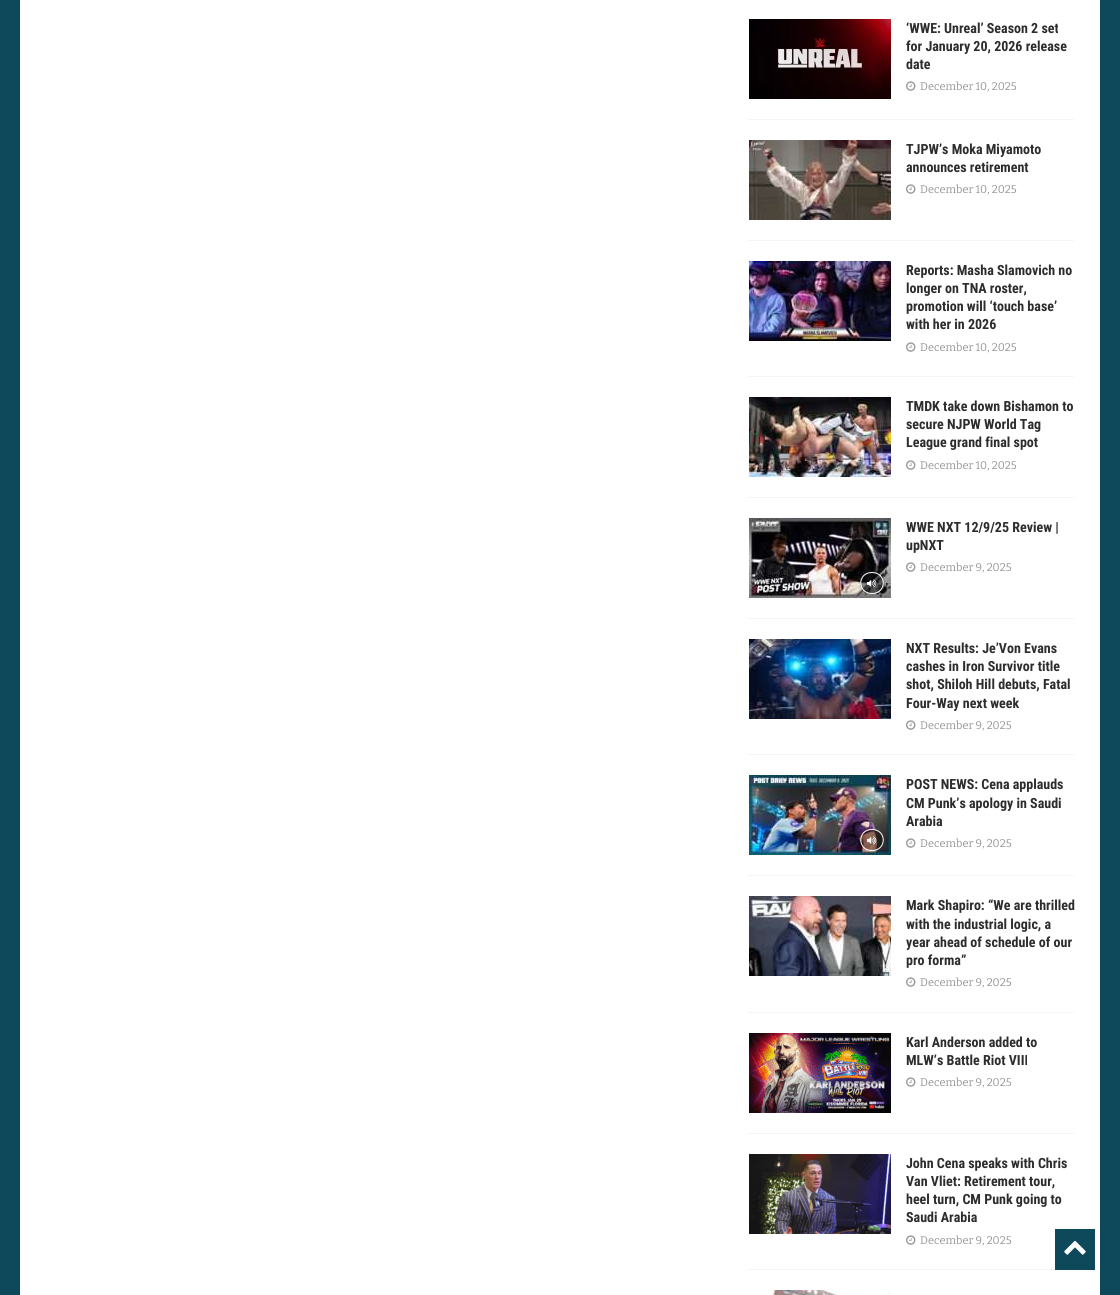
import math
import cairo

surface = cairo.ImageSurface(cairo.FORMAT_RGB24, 1120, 1295)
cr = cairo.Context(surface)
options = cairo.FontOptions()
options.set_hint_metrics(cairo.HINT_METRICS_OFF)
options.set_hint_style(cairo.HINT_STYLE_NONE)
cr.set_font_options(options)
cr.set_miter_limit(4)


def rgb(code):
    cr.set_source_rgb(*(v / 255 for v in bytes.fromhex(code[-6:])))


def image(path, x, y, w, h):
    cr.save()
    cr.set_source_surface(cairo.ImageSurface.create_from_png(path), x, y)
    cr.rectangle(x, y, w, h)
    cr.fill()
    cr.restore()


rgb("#0e495b")
cr.paint()
rgb("#ffffff")
cr.rectangle(20, 0, 1080, 1295)
cr.fill()
cr.new_path()
cr.move_to(749, 119.5)
cr.line_to(1075, 119.5)
rgb("#ebebeb")
cr.set_line_width(1)
cr.set_dash([1, 1])
cr.stroke()
image("img/1.png", 749, 19, 142, 80)
image("img/2.png", 906, 81, 10, 10)
cr.new_path()
cr.move_to(749, 240.5)
cr.line_to(1075, 240.5)
cr.stroke()
image("img/3.png", 749, 140, 142, 80)
image("img/2.png", 906, 184, 10, 10)
cr.new_path()
cr.move_to(749, 376.5)
cr.line_to(1075, 376.5)
cr.stroke()
image("img/4.png", 749, 261, 142, 80)
image("img/2.png", 906, 342, 10, 10)
cr.new_path()
cr.move_to(749, 497.5)
cr.line_to(1075, 497.5)
cr.stroke()
image("img/5.png", 749, 397, 142, 80)
image("img/2.png", 906, 460, 10, 10)
cr.new_path()
cr.move_to(749, 618.5)
cr.line_to(1075, 618.5)
cr.stroke()
image("img/6.png", 749, 518, 142, 80)
cr.set_source_rgba(0, 0, 0, 0.4)
cr.new_path()
cr.move_to(872, 572)
cr.curve_to(878.5, 572, 884, 577, 884, 583)
cr.curve_to(884, 589, 878.5, 594, 872, 594)
cr.curve_to(865.5, 594, 860, 589, 860, 583)
cr.curve_to(860, 577, 865.5, 572, 872, 572)
cr.close_path()
cr.fill()
cr.new_path()
cr.move_to(872, 572.5)
cr.curve_to(887, 572.5, 887, 593.5, 872, 593.5)
cr.curve_to(857, 593.5, 857, 572.5, 872, 572.5)
cr.close_path()
rgb("#ffffff")
cr.set_dash([])
cr.stroke()
image("img/7.png", 867, 579, 10, 9)
image("img/2.png", 906, 562, 10, 10)
cr.new_path()
cr.move_to(749, 754.5)
cr.line_to(1075, 754.5)
rgb("#ebebeb")
cr.set_dash([1, 1])
cr.stroke()
image("img/8.png", 749, 639, 142, 80)
image("img/2.png", 906, 720, 10, 10)
cr.new_path()
cr.move_to(749, 875.5)
cr.line_to(1075, 875.5)
cr.stroke()
image("img/9.png", 749, 775, 142, 80)
cr.set_source_rgba(0, 0, 0, 0.4)
cr.new_path()
cr.move_to(872, 829)
cr.curve_to(878.5, 829, 884, 834, 884, 840)
cr.curve_to(884, 846, 878.5, 851, 872, 851)
cr.curve_to(865.5, 851, 860, 846, 860, 840)
cr.curve_to(860, 834, 865.5, 829, 872, 829)
cr.close_path()
cr.fill()
cr.new_path()
cr.move_to(872, 829.5)
cr.curve_to(887, 829.5, 887, 850.5, 872, 850.5)
cr.curve_to(857, 850.5, 857, 829.5, 872, 829.5)
cr.close_path()
rgb("#ffffff")
cr.set_dash([])
cr.stroke()
image("img/10.png", 867, 836, 10, 9)
image("img/2.png", 906, 838, 10, 10)
cr.new_path()
cr.move_to(749, 1012.5)
cr.line_to(1075, 1012.5)
rgb("#ebebeb")
cr.set_dash([1, 1])
cr.stroke()
image("img/11.png", 749, 896, 142, 80)
image("img/2.png", 906, 977, 10, 10)
cr.new_path()
cr.move_to(749, 1133.5)
cr.line_to(1075, 1133.5)
cr.stroke()
image("img/12.png", 749, 1033, 142, 80)
image("img/2.png", 906, 1077, 10, 10)
cr.new_path()
cr.move_to(749, 1269.5)
cr.line_to(1075, 1269.5)
cr.stroke()
image("img/13.png", 749, 1154, 142, 80)
image("img/2.png", 906, 1235, 10, 10)
image("img/14.png", 772, 1290, 119, 5)
rgb("#0e495b")
cr.rectangle(1055, 1229, 40, 41)
cr.fill()
image("img/15.png", 1064, 1240, 22, 15)
cr.select_font_face("Roboto Condensed", cairo.FONT_SLANT_NORMAL, cairo.FONT_WEIGHT_BOLD)
cr.set_font_size(14)
rgb("#2d2d2d")
for x, y, s in [
    (906, 33, "‘WWE: Unreal’ Season 2 set"),
    (906, 51, "for January 20, 2026 release"),
    (906, 69, "date"),
]:
    cr.move_to(x, y)
    cr.show_text(s)
cr.select_font_face("Bitter")
cr.set_font_size(11)
rgb("#979797")
cr.move_to(920, 90)
cr.show_text("December 10, 2025")
cr.select_font_face("Roboto Condensed", cairo.FONT_SLANT_NORMAL, cairo.FONT_WEIGHT_BOLD)
cr.set_font_size(14)
rgb("#2d2d2d")
cr.move_to(906, 154)
cr.show_text("TJPW’s Moka Miyamoto")
cr.move_to(906, 172)
cr.show_text("announces retirement")
cr.select_font_face("Bitter")
cr.set_font_size(11)
rgb("#979797")
cr.move_to(920, 193)
cr.show_text("December 10, 2025")
cr.select_font_face("Roboto Condensed", cairo.FONT_SLANT_NORMAL, cairo.FONT_WEIGHT_BOLD)
cr.set_font_size(14)
rgb("#2d2d2d")
for x, y, s in [
    (906, 275, "Reports: Masha Slamovich no"),
    (906, 293, "longer on TNA roster,"),
    (906, 311, "promotion will ‘touch base’"),
    (906, 329, "with her in 2026"),
]:
    cr.move_to(x, y)
    cr.show_text(s)
cr.select_font_face("Bitter")
cr.set_font_size(11)
rgb("#979797")
cr.move_to(920, 351)
cr.show_text("December 10, 2025")
cr.select_font_face("Roboto Condensed", cairo.FONT_SLANT_NORMAL, cairo.FONT_WEIGHT_BOLD)
cr.set_font_size(14)
rgb("#2d2d2d")
for x, y, s in [
    (906, 411, "TMDK take down Bishamon to"),
    (906, 429, "secure NJPW World Tag"),
    (906, 447, "League grand final spot"),
]:
    cr.move_to(x, y)
    cr.show_text(s)
cr.select_font_face("Bitter")
cr.set_font_size(11)
rgb("#979797")
cr.move_to(920, 469)
cr.show_text("December 10, 2025")
cr.select_font_face("Roboto Condensed", cairo.FONT_SLANT_NORMAL, cairo.FONT_WEIGHT_BOLD)
cr.set_font_size(14)
rgb("#2d2d2d")
cr.move_to(906, 532)
cr.show_text("WWE NXT 12/9/25 Review |")
cr.move_to(906, 550)
cr.show_text("upNXT")
cr.select_font_face("Bitter")
cr.set_font_size(11)
rgb("#979797")
cr.move_to(920, 571)
cr.show_text("December 9, 2025")
cr.select_font_face("Roboto Condensed", cairo.FONT_SLANT_NORMAL, cairo.FONT_WEIGHT_BOLD)
cr.set_font_size(14)
rgb("#2d2d2d")
for x, y, s in [
    (906, 653, "NXT Results: Je’Von Evans"),
    (906, 671, "cashes in Iron Survivor title"),
    (906, 689, "shot, Shiloh Hill debuts, Fatal"),
    (906, 708, "Four-Way next week"),
]:
    cr.move_to(x, y)
    cr.show_text(s)
cr.select_font_face("Bitter")
cr.set_font_size(11)
rgb("#979797")
cr.move_to(920, 729)
cr.show_text("December 9, 2025")
cr.select_font_face("Roboto Condensed", cairo.FONT_SLANT_NORMAL, cairo.FONT_WEIGHT_BOLD)
cr.set_font_size(14)
rgb("#2d2d2d")
for x, y, s in [
    (906, 789, "POST NEWS: Cena applauds"),
    (906, 808, "CM Punk’s apology in Saudi"),
    (906, 826, "Arabia"),
]:
    cr.move_to(x, y)
    cr.show_text(s)
cr.select_font_face("Bitter")
cr.set_font_size(11)
rgb("#979797")
cr.move_to(920, 847)
cr.show_text("December 9, 2025")
cr.select_font_face("Roboto Condensed", cairo.FONT_SLANT_NORMAL, cairo.FONT_WEIGHT_BOLD)
cr.set_font_size(14)
rgb("#2d2d2d")
for x, y, s in [
    (906, 910, "Mark Shapiro: “We are thrilled"),
    (906, 929, "with the industrial logic, a"),
    (906, 947, "year ahead of schedule of our"),
    (906, 965, "pro forma”"),
]:
    cr.move_to(x, y)
    cr.show_text(s)
cr.select_font_face("Bitter")
cr.set_font_size(11)
rgb("#979797")
cr.move_to(920, 986)
cr.show_text("December 9, 2025")
cr.select_font_face("Roboto Condensed", cairo.FONT_SLANT_NORMAL, cairo.FONT_WEIGHT_BOLD)
cr.set_font_size(14)
rgb("#2d2d2d")
cr.move_to(906, 1047)
cr.show_text("Karl Anderson added to")
cr.move_to(906, 1065)
cr.show_text("MLW’s Battle Riot VIII")
cr.select_font_face("Bitter")
cr.set_font_size(11)
rgb("#979797")
cr.move_to(920, 1086)
cr.show_text("December 9, 2025")
cr.select_font_face("Roboto Condensed", cairo.FONT_SLANT_NORMAL, cairo.FONT_WEIGHT_BOLD)
cr.set_font_size(14)
rgb("#2d2d2d")
for x, y, s in [
    (906, 1168, "John Cena speaks with Chris"),
    (906, 1186, "Van Vliet: Retirement tour,"),
    (906, 1204, "heel turn, CM Punk going to"),
    (906, 1222, "Saudi Arabia"),
]:
    cr.move_to(x, y)
    cr.show_text(s)
cr.select_font_face("Bitter")
cr.set_font_size(11)
rgb("#979797")
cr.move_to(920, 1244)
cr.show_text("December 9, 2025")
surface.write_to_png("page.png")
